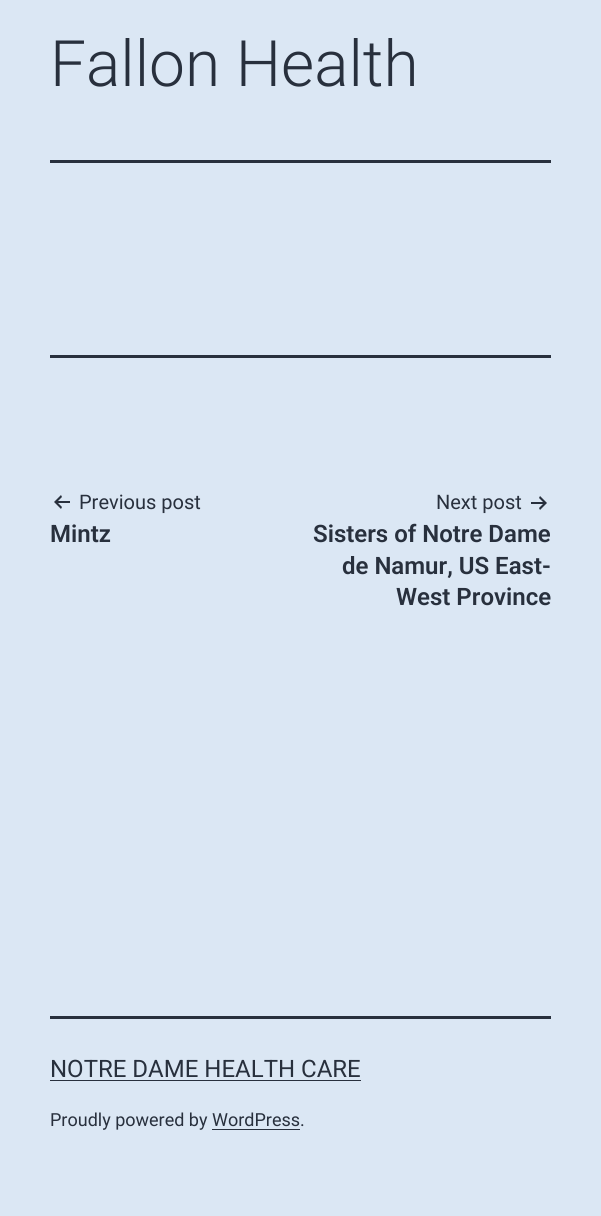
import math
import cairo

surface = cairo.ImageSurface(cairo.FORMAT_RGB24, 601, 1216)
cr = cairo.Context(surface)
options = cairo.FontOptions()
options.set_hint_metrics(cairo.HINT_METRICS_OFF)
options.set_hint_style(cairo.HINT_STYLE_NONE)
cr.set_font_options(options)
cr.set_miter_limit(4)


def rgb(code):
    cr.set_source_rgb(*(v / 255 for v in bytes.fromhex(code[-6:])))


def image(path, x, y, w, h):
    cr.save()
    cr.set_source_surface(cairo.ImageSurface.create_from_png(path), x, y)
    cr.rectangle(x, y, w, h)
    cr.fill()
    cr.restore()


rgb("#dbe7f4")
cr.paint()
rgb("#28303d")
cr.rectangle(50, 160, 501, 3)
cr.fill()
cr.rectangle(50, 355, 501, 3)
cr.fill()
image("img/1.png", 54, 495, 16, 14)
image("img/2.png", 531, 496, 16, 14)
for x, y, w, h, color in [
    (50, 1016, 501, 3, "#28303d"),
    (50, 1080, 311, 1, "#28303d"),
    (212, 1129, 88, 1, "#28303d"),
]:
    rgb(color)
    cr.rectangle(x, y, w, h)
    cr.fill()
cr.select_font_face("Roboto Light")
cr.set_font_size(64)
cr.move_to(50, 86)
cr.show_text("Fallon Health")
cr.select_font_face("Roboto")
cr.set_font_size(20)
cr.move_to(79, 509)
cr.show_text("Previous post")
cr.select_font_face("Roboto SemiBold")
cr.set_font_size(24)
cr.move_to(50, 542)
cr.show_text("Mintz")
cr.select_font_face("Roboto")
cr.set_font_size(20)
cr.move_to(436, 509)
cr.show_text("Next post")
cr.select_font_face("Roboto SemiBold")
cr.set_font_size(24)
for x, y, s in [
    (313, 542, "Sisters of Notre Dame"),
    (342, 574, "de Namur, US East-"),
    (396, 605, "West Province"),
]:
    cr.move_to(x, y)
    cr.show_text(s)
cr.select_font_face("Roboto")
cr.move_to(50, 1077)
cr.show_text("NOTRE DAME HEALTH CARE")
cr.set_font_size(18)
cr.move_to(50, 1126)
cr.show_text("Proudly powered by WordPress.")
surface.write_to_png("page.png")
